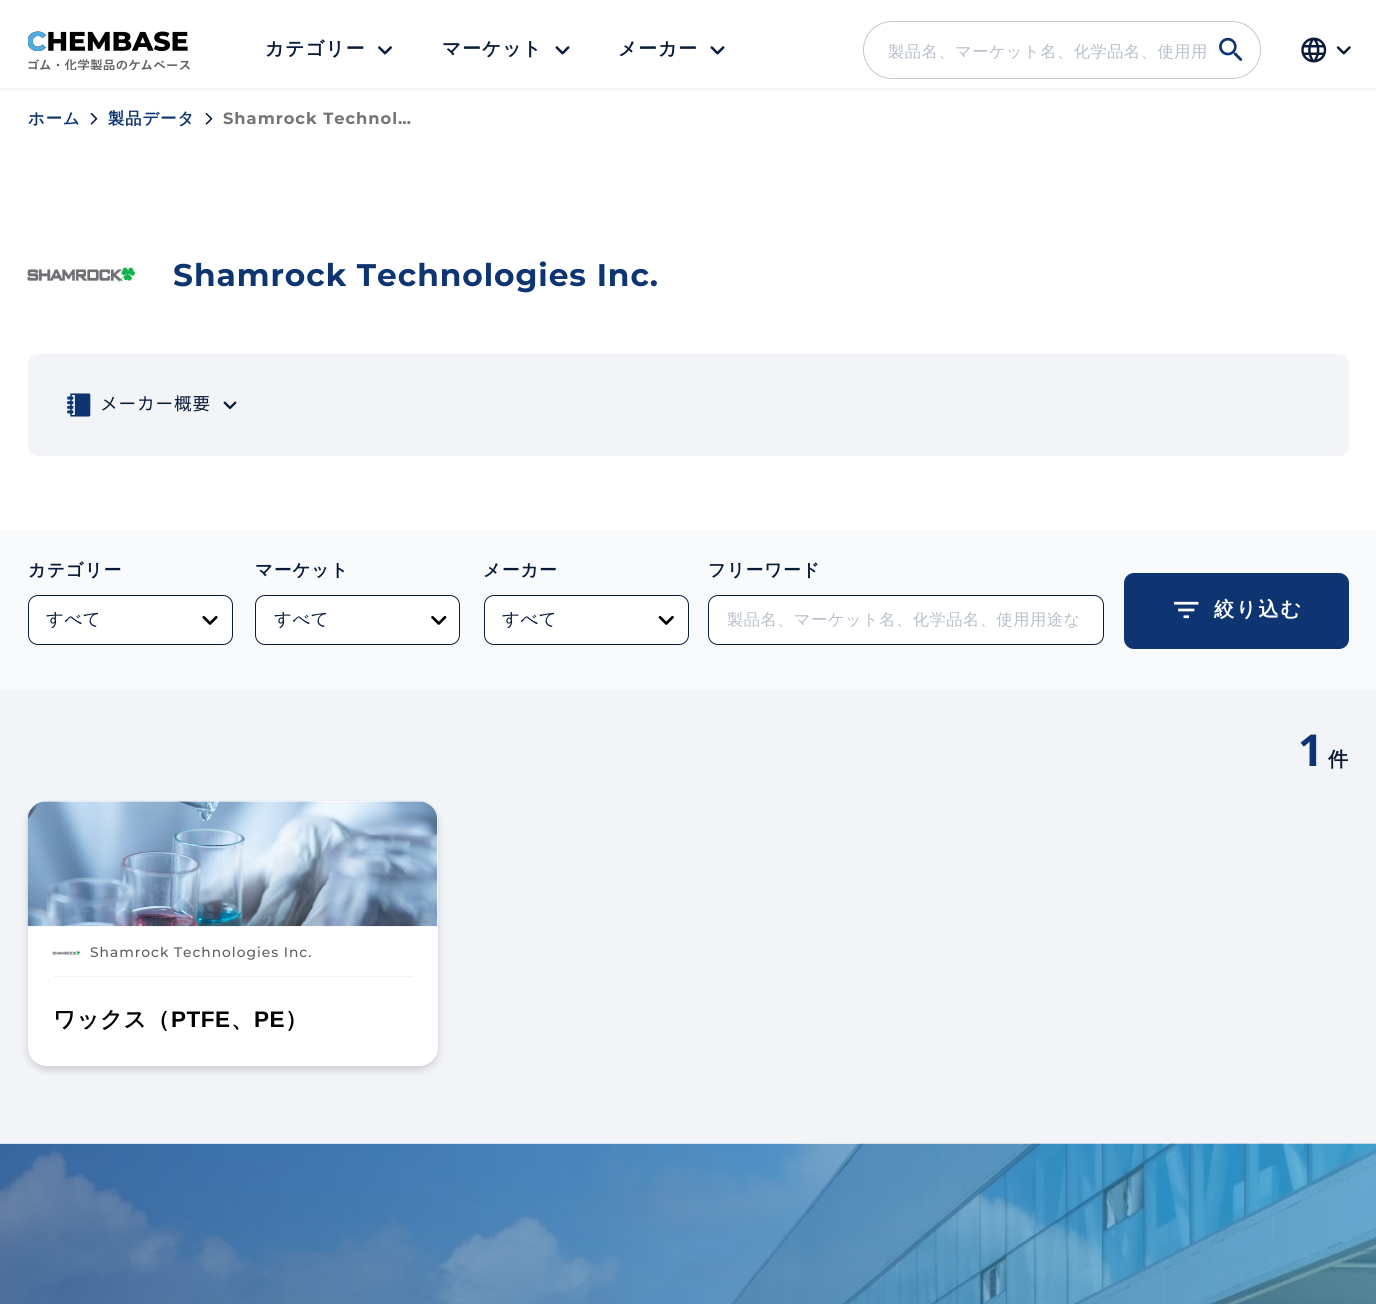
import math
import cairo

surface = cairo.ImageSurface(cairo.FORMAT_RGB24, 1376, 1304)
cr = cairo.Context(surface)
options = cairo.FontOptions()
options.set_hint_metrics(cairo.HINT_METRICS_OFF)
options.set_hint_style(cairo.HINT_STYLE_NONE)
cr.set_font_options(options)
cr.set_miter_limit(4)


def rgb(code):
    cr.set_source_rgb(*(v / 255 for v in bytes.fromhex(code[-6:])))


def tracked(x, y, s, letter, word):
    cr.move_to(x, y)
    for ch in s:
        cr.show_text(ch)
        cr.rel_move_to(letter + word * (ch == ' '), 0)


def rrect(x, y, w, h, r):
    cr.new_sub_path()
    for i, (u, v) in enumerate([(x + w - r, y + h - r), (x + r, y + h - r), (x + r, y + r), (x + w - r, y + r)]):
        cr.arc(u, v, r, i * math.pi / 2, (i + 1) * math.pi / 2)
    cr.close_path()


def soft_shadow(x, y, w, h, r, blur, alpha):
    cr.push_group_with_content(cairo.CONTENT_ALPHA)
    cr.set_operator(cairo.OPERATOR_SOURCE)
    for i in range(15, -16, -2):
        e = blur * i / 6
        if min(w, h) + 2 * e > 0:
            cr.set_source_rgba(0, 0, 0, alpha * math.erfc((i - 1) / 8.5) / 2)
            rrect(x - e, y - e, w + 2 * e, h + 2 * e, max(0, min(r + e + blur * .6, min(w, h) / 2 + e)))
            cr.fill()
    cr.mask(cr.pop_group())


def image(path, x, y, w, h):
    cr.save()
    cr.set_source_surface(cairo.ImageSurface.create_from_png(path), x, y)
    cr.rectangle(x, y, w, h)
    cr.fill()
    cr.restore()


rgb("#ffffff")
cr.paint()
rgb("#000000")
soft_shadow(0, -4, 1376, 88, 0, 5, 0.24)
rgb("#ffffff")
cr.rectangle(0, 0, 1376, 88)
cr.fill()
image("img/1.png", 28, 31, 162, 39)
image("img/2.png", 378, 46, 14, 9)
image("img/3.png", 555, 46, 15, 9)
image("img/3.png", 710, 46, 15, 9)
rrect(863.5, 21.5, 397, 57, 28.5)
rgb("#c5c7c9")
cr.set_line_width(1)
cr.stroke()
image("img/4.png", 1219, 37, 24, 24)
image("img/5.png", 1301, 37, 26, 26)
image("img/6.png", 1336, 46, 15, 9)
image("img/7.png", 90, 112, 8, 13)
image("img/7.png", 205, 112, 8, 13)
image("img/8.png", 27, 267, 108, 16)
rgb("#f2f4f7")
rrect(28, 354, 1321, 102, 10)
cr.fill()
image("img/9.png", 67, 393, 24, 24)
image("img/10.png", 223, 401, 14, 9)
rgb("#f9fafb")
cr.rectangle(0, 531, 1376, 159)
cr.fill()
rgb("#ffffff")
rrect(28, 595, 205, 50, 10)
cr.fill()
image("img/11.png", 202, 615, 16, 10)
rrect(28.5, 595.5, 204, 49, 9.5)
rgb("#081b39")
cr.stroke()
rgb("#ffffff")
rrect(255, 595, 205, 50, 10)
cr.fill()
image("img/12.png", 431, 615, 16, 10)
rrect(255.5, 595.5, 204, 49, 9.5)
rgb("#081b39")
cr.stroke()
rgb("#ffffff")
rrect(484, 595, 205, 50, 10)
cr.fill()
image("img/13.png", 658, 616, 16, 9)
rrect(484.5, 595.5, 204, 49, 9.5)
rgb("#081b39")
cr.stroke()
rgb("#ffffff")
rrect(708.5, 595.5, 395, 49, 9.5)
cr.fill_preserve()
rgb("#081b39")
cr.stroke()
rgb("#0e3571")
rrect(1124, 573, 225, 76, 10)
cr.fill()
image("img/14.png", 1174, 601, 25, 18)
rgb("#f2f4f7")
cr.rectangle(0, 690, 1376, 454)
cr.fill()
rgb("#ffffff")
rrect(28, 801, 410, 265, 19)
cr.fill()
cr.save()
cr.set_fill_rule(cairo.FILL_RULE_EVEN_ODD)
cr.new_path()
cr.move_to(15, 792)
cr.line_to(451, 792)
cr.line_to(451, 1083)
cr.line_to(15, 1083)
cr.close_path()
cr.move_to(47, 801)
cr.line_to(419, 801)
cr.curve_to(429.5, 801, 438, 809.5, 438, 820)
cr.line_to(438, 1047)
cr.curve_to(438, 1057.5, 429.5, 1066, 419, 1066)
cr.line_to(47, 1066)
cr.curve_to(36.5, 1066, 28, 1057.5, 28, 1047)
cr.line_to(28, 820)
cr.curve_to(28, 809.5, 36.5, 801, 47, 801)
cr.close_path()
cr.clip()
rgb("#000000")
soft_shadow(28, 805, 410, 265, 19, 4, 0.16)
cr.restore()
image("img/15.png", 27, 801, 411, 126)
rgb("#f2f4f7")
cr.rectangle(53, 976, 360, 1)
cr.fill()
image("img/16.png", 52, 951, 28, 4)
image("img/17.png", 0, 1143, 1376, 161)
cr.select_font_face("WenQuanYi Zen Hei", cairo.FONT_SLANT_NORMAL, cairo.FONT_WEIGHT_BOLD)
cr.set_font_size(18.75)
rgb("#081b39")
for x, y, s in [
    (265, 55, "カテゴリー"),
    (442, 55, "マーケット"),
    (618, 55, "メーカー"),
]:
    tracked(x, y, s, 1, 0)
cr.select_font_face("WenQuanYi Zen Hei Medium")
cr.set_font_size(16.25)
rgb("#b8bfcb")
tracked(888, 57, "製品名、マーケット名、化学品名、使用用", 0.5, 0)
cr.select_font_face("WenQuanYi Zen Hei", cairo.FONT_SLANT_NORMAL, cairo.FONT_WEIGHT_BOLD)
rgb("#0e3571")
tracked(28, 124, "ホーム", 1, 0)
tracked(108, 124, "製品データ", 1, 0)
cr.select_font_face("Montserrat", cairo.FONT_SLANT_NORMAL, cairo.FONT_WEIGHT_BOLD)
rgb("#747474")
tracked(223, 124, "Shamrock Technol…", 1, 0)
cr.set_font_size(31.25)
rgb("#0e3571")
tracked(173, 286, "Shamrock Technologies Inc.", 0.95, 0)
cr.select_font_face("Noto Sans JP")
cr.set_font_size(17.5)
rgb("#081b39")
tracked(100, 410, "メーカー概要", 1, 0)
cr.select_font_face("WenQuanYi Zen Hei", cairo.FONT_SLANT_NORMAL, cairo.FONT_WEIGHT_BOLD)
tracked(28, 576, "カテゴリー", 1, 0)
cr.select_font_face("WenQuanYi Zen Hei Medium")
tracked(46, 625, "すべて", 0.5, 0)
cr.select_font_face("WenQuanYi Zen Hei", cairo.FONT_SLANT_NORMAL, cairo.FONT_WEIGHT_BOLD)
tracked(255, 576, "マーケット", 1, 0)
cr.select_font_face("WenQuanYi Zen Hei Medium")
tracked(274, 625, "すべて", 0.5, 0)
cr.select_font_face("WenQuanYi Zen Hei", cairo.FONT_SLANT_NORMAL, cairo.FONT_WEIGHT_BOLD)
tracked(483, 576, "メーカー", 1, 0)
cr.select_font_face("WenQuanYi Zen Hei Medium")
tracked(502, 625, "すべて", 0.5, 0)
cr.select_font_face("WenQuanYi Zen Hei", cairo.FONT_SLANT_NORMAL, cairo.FONT_WEIGHT_BOLD)
tracked(708, 576, "フリーワード", 1, 0)
cr.select_font_face("WenQuanYi Zen Hei Medium")
cr.set_font_size(16.25)
rgb("#b8bfcb")
tracked(727, 625, "製品名、マーケット名、化学品名、使用用途な", 0.5, 0)
cr.select_font_face("WenQuanYi Zen Hei", cairo.FONT_SLANT_NORMAL, cairo.FONT_WEIGHT_BOLD)
cr.set_font_size(20)
rgb("#ffffff")
tracked(1214, 616, "絞り込む", 2, 0)
cr.select_font_face("Open Sans", cairo.FONT_SLANT_NORMAL, cairo.FONT_WEIGHT_BOLD)
cr.set_font_size(44)
rgb("#0e3571")
tracked(1298, 766, "1", 4, 0)
cr.select_font_face("WenQuanYi Zen Hei", cairo.FONT_SLANT_NORMAL, cairo.FONT_WEIGHT_BOLD)
cr.set_font_size(20)
rgb("#081b39")
tracked(1328, 766, "件", 1, 0)
cr.select_font_face("Montserrat Medium")
cr.set_font_size(13.75)
rgb("#5f5f5f")
tracked(90, 957, "Shamrock Technologies Inc.", 1, 0)
cr.select_font_face("WenQuanYi Zen Hei", cairo.FONT_SLANT_NORMAL, cairo.FONT_WEIGHT_BOLD)
cr.set_font_size(22.5)
rgb("#000000")
tracked(53, 1027, "ワックス（", 0.5, 0)
cr.select_font_face("Liberation Sans", cairo.FONT_SLANT_NORMAL, cairo.FONT_WEIGHT_BOLD)
tracked(171, 1027, "PTFE", 0.5, 0)
cr.select_font_face("WenQuanYi Zen Hei", cairo.FONT_SLANT_NORMAL, cairo.FONT_WEIGHT_BOLD)
tracked(231, 1027, "、", 0.5, 0)
cr.select_font_face("Liberation Sans", cairo.FONT_SLANT_NORMAL, cairo.FONT_WEIGHT_BOLD)
tracked(254, 1027, "PE", 0.5, 0)
cr.select_font_face("WenQuanYi Zen Hei", cairo.FONT_SLANT_NORMAL, cairo.FONT_WEIGHT_BOLD)
tracked(285, 1027, "）", 0.5, 0)
surface.write_to_png("page.png")
